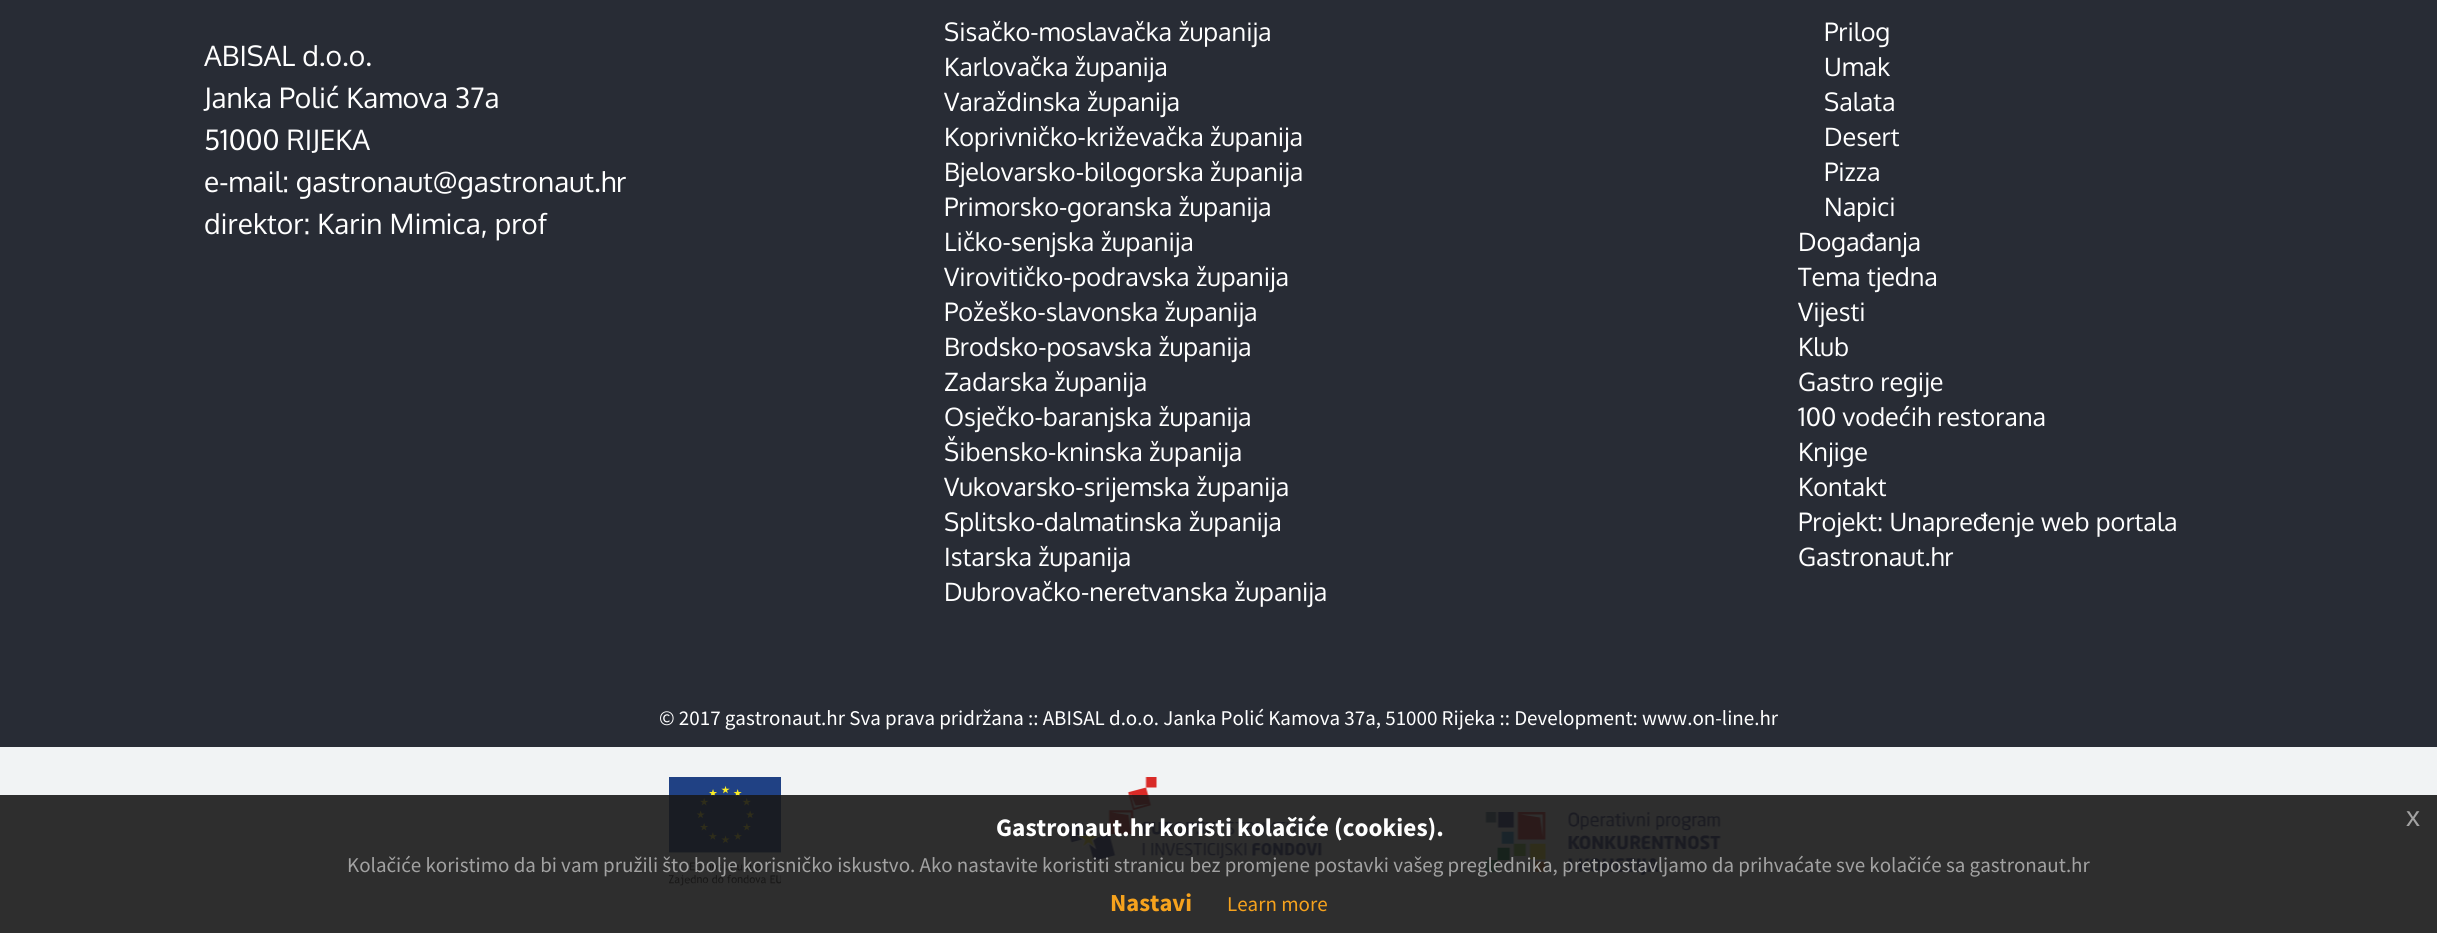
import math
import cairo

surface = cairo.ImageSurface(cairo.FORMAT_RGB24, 2437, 933)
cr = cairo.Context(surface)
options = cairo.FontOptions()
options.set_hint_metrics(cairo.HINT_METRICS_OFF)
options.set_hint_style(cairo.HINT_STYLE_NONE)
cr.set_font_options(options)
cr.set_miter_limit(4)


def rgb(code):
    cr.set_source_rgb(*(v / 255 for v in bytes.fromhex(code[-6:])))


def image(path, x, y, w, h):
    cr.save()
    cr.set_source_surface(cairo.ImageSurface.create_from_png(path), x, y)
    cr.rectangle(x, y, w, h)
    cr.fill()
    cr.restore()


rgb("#282c35")
cr.paint()
rgb("#f1f3f4")
cr.rectangle(0, 747, 2437, 186)
cr.fill()
image("img/1.png", 669, 777, 112, 109)
image("img/2.png", 1068, 777, 254, 84)
image("img/3.png", 1485, 812, 236, 63)
cr.set_source_rgba(0.098, 0.098, 0.098, 0.9)
cr.rectangle(0, 795, 2437, 138)
cr.fill()
cr.select_font_face("Oxygen")
cr.set_font_size(28)
rgb("#ffffff")
for x, y, s in [
    (204, 66, "ABISAL d.o.o."),
    (204, 108, "Janka Polić Kamova 37a"),
    (204, 150, "51000 RIJEKA"),
    (204, 192, "e-mail: gastronaut@gastronaut.hr"),
    (204, 234, "direktor: Karin Mimica, prof"),
]:
    cr.move_to(x, y)
    cr.show_text(s)
cr.set_font_size(25.25)
for x, y, s in [
    (944, 41, "Sisačko-moslavačka županija"),
    (944, 76, "Karlovačka županija"),
    (944, 111, "Varaždinska županija"),
    (944, 146, "Koprivničko-križevačka županija"),
    (944, 181, "Bjelovarsko-bilogorska županija"),
    (944, 216, "Primorsko-goranska županija"),
    (944, 251, "Ličko-senjska županija"),
    (944, 286, "Virovitičko-podravska županija"),
    (944, 321, "Požeško-slavonska županija"),
    (944, 356, "Brodsko-posavska županija"),
    (944, 391, "Zadarska županija"),
    (944, 426, "Osječko-baranjska županija"),
    (944, 461, "Šibensko-kninska županija"),
    (944, 496, "Vukovarsko-srijemska županija"),
    (944, 531, "Splitsko-dalmatinska županija"),
    (944, 566, "Istarska županija"),
    (944, 601, "Dubrovačko-neretvanska županija"),
    (1824, 41, "Prilog"),
    (1824, 76, "Umak"),
    (1824, 111, "Salata"),
    (1824, 146, "Desert"),
    (1824, 181, "Pizza"),
    (1824, 216, "Napici"),
    (1798, 251, "Događanja"),
    (1798, 286, "Tema tjedna"),
    (1798, 321, "Vijesti"),
    (1798, 356, "Klub"),
    (1798, 391, "Gastro regije"),
    (1798, 426, "100 vodećih restorana"),
    (1798, 461, "Knjige"),
    (1798, 496, "Kontakt"),
    (1798, 531, "Projekt: Unapređenje web portala"),
    (1798, 566, "Gastronaut.hr"),
]:
    cr.move_to(x, y)
    cr.show_text(s)
cr.select_font_face("Source Sans Pro")
cr.set_font_size(21)
cr.move_to(659, 725)
cr.show_text("© 2017 gastronaut.hr Sva prava pridržana :: ABISAL d.o.o. Janka Polić Kamova 37a, 51000 Rijeka :: Development: www.on-line.hr")
cr.select_font_face("Source Sans Pro", cairo.FONT_SLANT_NORMAL, cairo.FONT_WEIGHT_BOLD)
cr.set_font_size(25.25)
cr.move_to(996, 836)
cr.show_text("Gastronaut.hr koristi kolačiće (cookies).")
cr.select_font_face("Liberation Sans")
cr.set_font_size(28)
rgb("#a2a2a2")
cr.move_to(2406, 826)
cr.show_text("x")
cr.select_font_face("Source Sans Pro")
cr.set_font_size(21)
cr.move_to(347, 872)
cr.show_text("Kolačiće koristimo da bi vam pružili što bolje korisničko iskustvo. Ako nastavite koristiti stranicu bez promjene postavki vašeg preglednika, pretpostavljamo da prihvaćate sve kolačiće sa gastronaut.hr")
cr.select_font_face("Source Sans Pro", cairo.FONT_SLANT_NORMAL, cairo.FONT_WEIGHT_BOLD)
cr.set_font_size(24.5)
rgb("#f6a21d")
cr.move_to(1110, 911)
cr.show_text("Nastavi")
cr.select_font_face("Source Sans Pro")
cr.set_font_size(21)
cr.move_to(1227, 911)
cr.show_text("Learn more")
surface.write_to_png("page.png")
